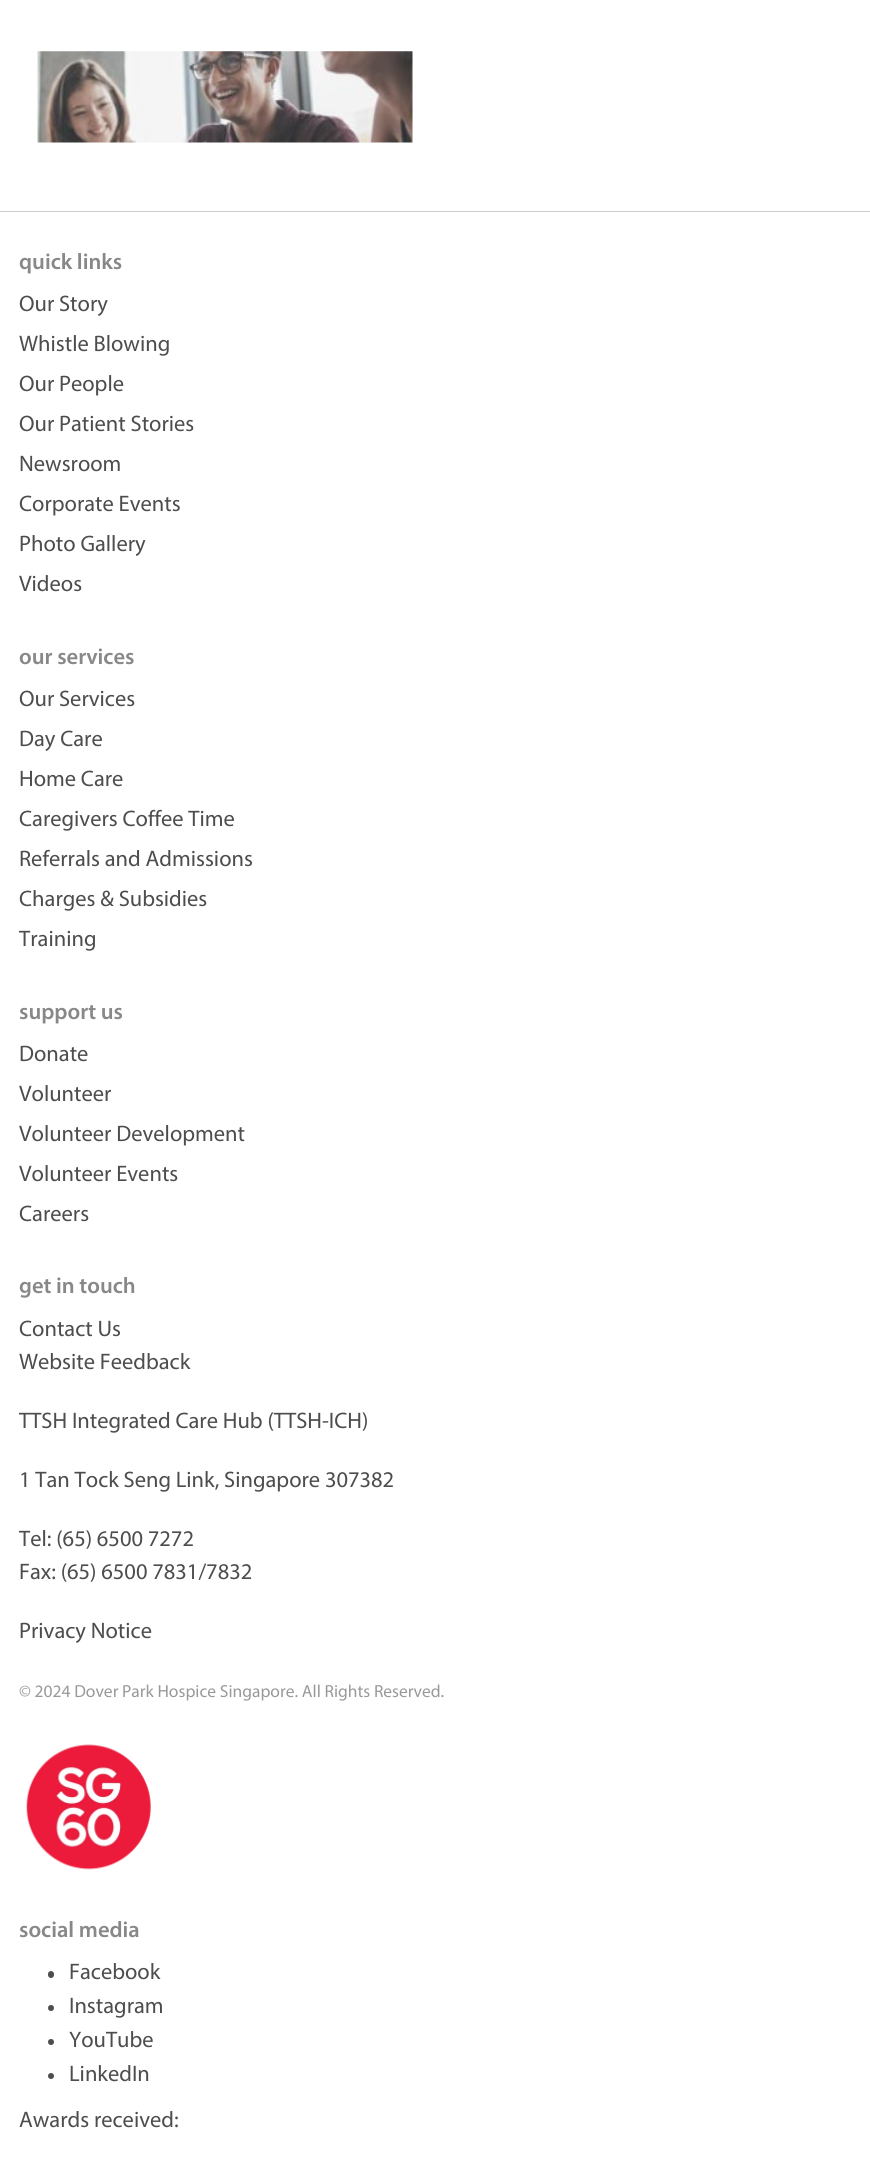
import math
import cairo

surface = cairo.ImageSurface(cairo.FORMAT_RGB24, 870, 2171)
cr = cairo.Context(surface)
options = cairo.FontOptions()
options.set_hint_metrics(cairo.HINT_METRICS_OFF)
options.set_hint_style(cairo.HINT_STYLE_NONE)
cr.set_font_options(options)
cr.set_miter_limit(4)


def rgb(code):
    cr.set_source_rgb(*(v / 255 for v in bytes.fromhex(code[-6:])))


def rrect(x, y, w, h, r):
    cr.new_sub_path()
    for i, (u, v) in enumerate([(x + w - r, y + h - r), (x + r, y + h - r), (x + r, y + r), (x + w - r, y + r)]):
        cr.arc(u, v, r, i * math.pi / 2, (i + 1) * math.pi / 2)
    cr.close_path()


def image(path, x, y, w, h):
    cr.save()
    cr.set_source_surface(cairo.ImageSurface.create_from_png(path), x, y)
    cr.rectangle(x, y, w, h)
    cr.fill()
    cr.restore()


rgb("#ffffff")
cr.paint()
image("img/1.png", 37, 51, 376, 92)
rgb("#cccccc")
cr.rectangle(0, 211, 870, 1)
cr.fill()
image("img/2.png", 26, 1744, 125, 126)
rgb("#4d4d4d")
rrect(48, 1971, 6, 7, 3)
cr.fill()
cr.arc(51, 2008, 3, 0, 2 * math.pi)
cr.fill()
cr.arc(51, 2042, 3, 0, 2 * math.pi)
cr.fill()
cr.arc(51, 2076, 3, 0, 2 * math.pi)
cr.fill()
cr.select_font_face("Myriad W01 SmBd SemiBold")
cr.set_font_size(22.5)
rgb("#888888")
cr.move_to(19, 269)
cr.show_text("quick links")
cr.select_font_face("Myriad")
rgb("#4d4d4d")
for x, y, s in [
    (19, 311, "Our Story"),
    (19, 351, "Whistle Blowing"),
    (19, 391, "Our People"),
    (19, 431, "Our Patient Stories"),
    (19, 471, "Newsroom"),
    (19, 511, "Corporate Events"),
    (19, 551, "Photo Gallery"),
    (19, 591, "Videos"),
]:
    cr.move_to(x, y)
    cr.show_text(s)
cr.select_font_face("Myriad W01 SmBd SemiBold")
rgb("#888888")
cr.move_to(19, 664)
cr.show_text("our services")
cr.select_font_face("Myriad")
rgb("#4d4d4d")
for x, y, s in [
    (19, 706, "Our Services"),
    (19, 746, "Day Care"),
    (19, 786, "Home Care"),
    (19, 826, "Caregivers Coffee Time"),
    (19, 866, "Referrals and Admissions"),
    (19, 906, "Charges & Subsidies"),
    (19, 946, "Training"),
]:
    cr.move_to(x, y)
    cr.show_text(s)
cr.select_font_face("Myriad W01 SmBd SemiBold")
rgb("#888888")
cr.move_to(19, 1019)
cr.show_text("support us")
cr.select_font_face("Myriad")
rgb("#4d4d4d")
for x, y, s in [
    (19, 1061, "Donate"),
    (19, 1101, "Volunteer"),
    (19, 1141, "Volunteer Development"),
    (19, 1181, "Volunteer Events"),
    (19, 1221, "Careers"),
]:
    cr.move_to(x, y)
    cr.show_text(s)
cr.select_font_face("Myriad W01 SmBd SemiBold")
rgb("#888888")
cr.move_to(19, 1293)
cr.show_text("get in touch")
cr.select_font_face("Myriad")
rgb("#4d4d4d")
for x, y, s in [
    (19, 1336, "Contact Us"),
    (19, 1369, "Website Feedback"),
    (19, 1428, "TTSH Integrated Care Hub (TTSH-ICH)"),
    (19, 1487, "1 Tan Tock Seng Link, Singapore 307382"),
    (19, 1546, "Tel: (65) 6500 7272"),
    (19, 1579, "Fax: (65) 6500 7831/7832"),
    (19, 1638, "Privacy Notice"),
]:
    cr.move_to(x, y)
    cr.show_text(s)
cr.set_font_size(17.5)
rgb("#999999")
cr.move_to(19, 1697)
cr.show_text("© 2024 Dover Park Hospice Singapore. All Rights Reserved.")
cr.select_font_face("Myriad W01 SmBd SemiBold")
cr.set_font_size(22.5)
rgb("#888888")
cr.move_to(19, 1937)
cr.show_text("social media")
cr.select_font_face("Myriad")
rgb("#4d4d4d")
for x, y, s in [
    (69, 1979, "Facebook"),
    (69, 2013, "Instagram"),
    (69, 2047, "YouTube"),
    (69, 2081, "LinkedIn"),
    (19, 2127, "Awards received:"),
]:
    cr.move_to(x, y)
    cr.show_text(s)
surface.write_to_png("page.png")
